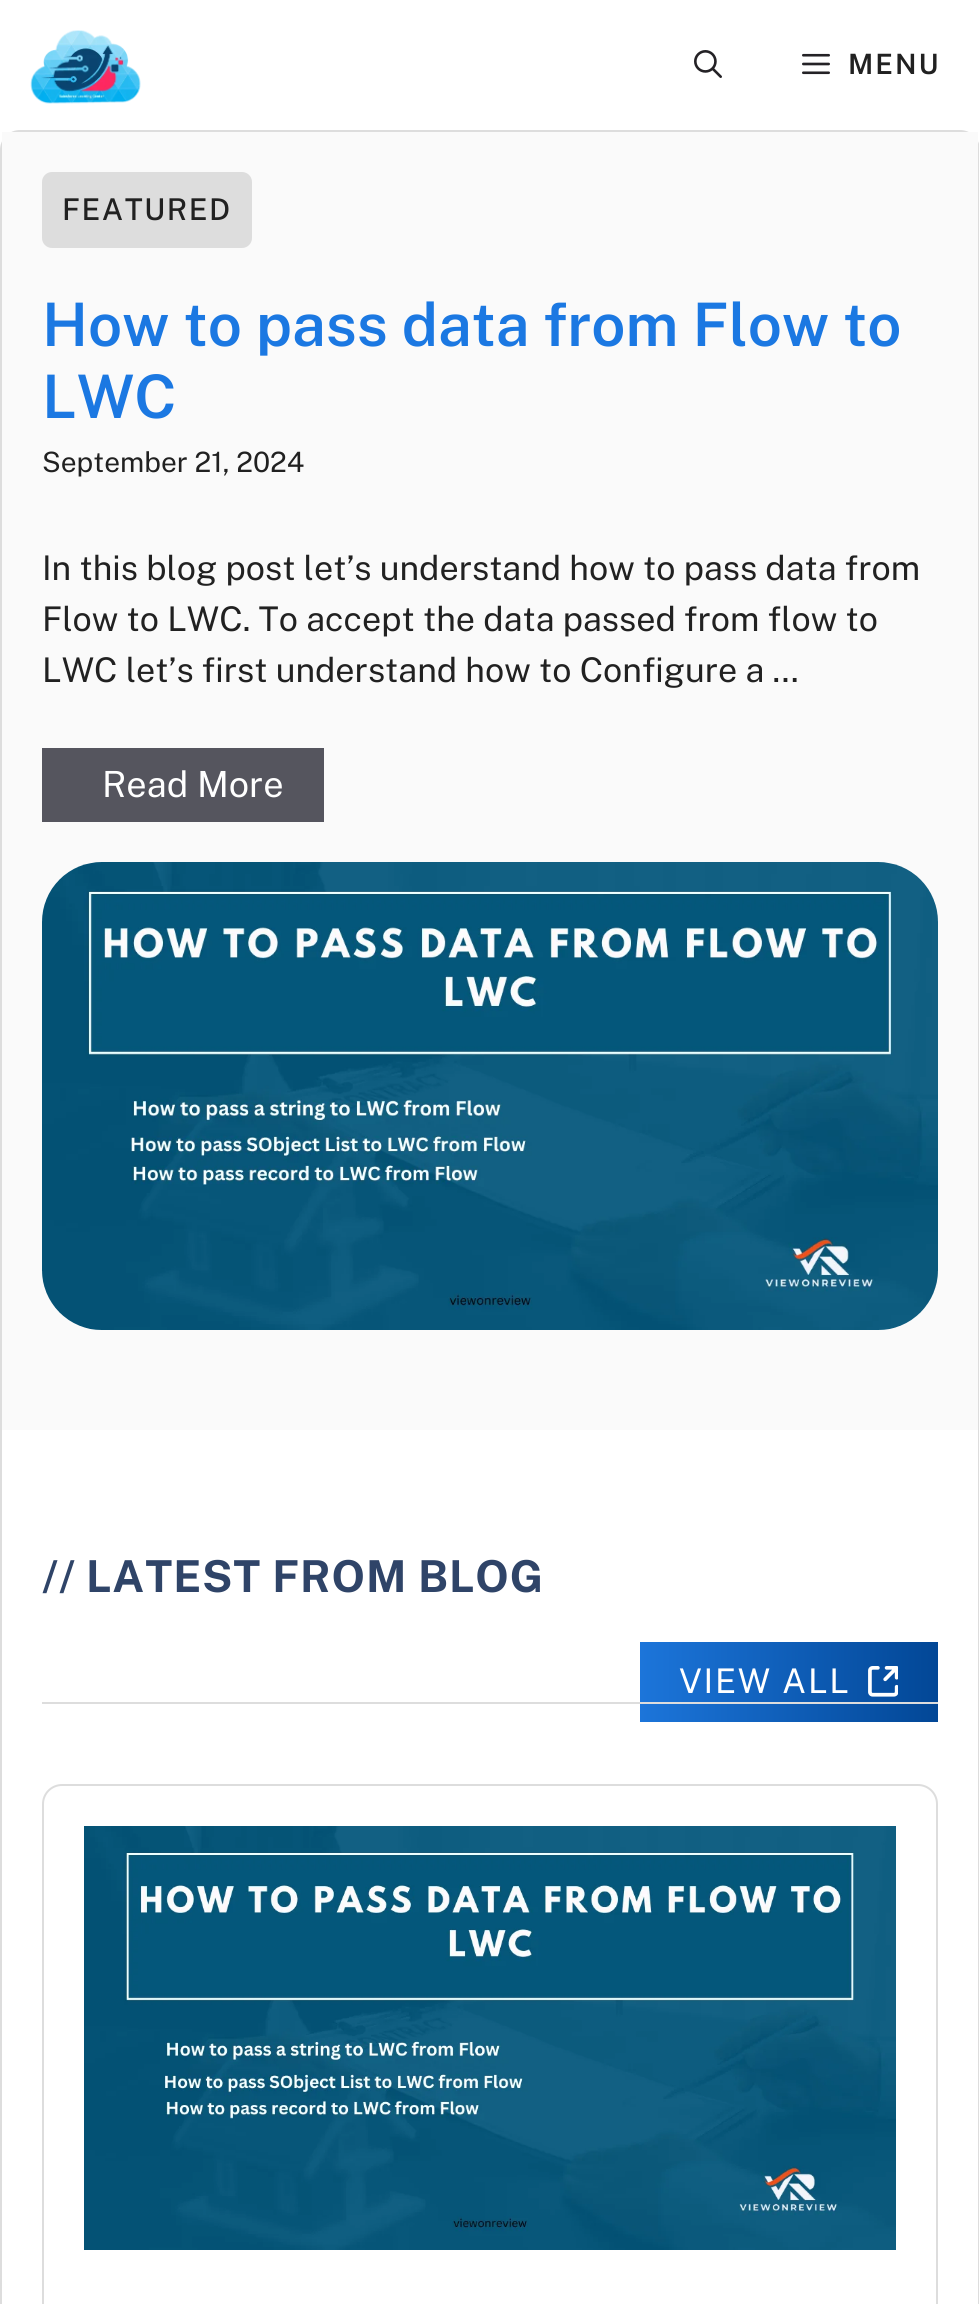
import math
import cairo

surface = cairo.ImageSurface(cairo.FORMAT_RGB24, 979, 2304)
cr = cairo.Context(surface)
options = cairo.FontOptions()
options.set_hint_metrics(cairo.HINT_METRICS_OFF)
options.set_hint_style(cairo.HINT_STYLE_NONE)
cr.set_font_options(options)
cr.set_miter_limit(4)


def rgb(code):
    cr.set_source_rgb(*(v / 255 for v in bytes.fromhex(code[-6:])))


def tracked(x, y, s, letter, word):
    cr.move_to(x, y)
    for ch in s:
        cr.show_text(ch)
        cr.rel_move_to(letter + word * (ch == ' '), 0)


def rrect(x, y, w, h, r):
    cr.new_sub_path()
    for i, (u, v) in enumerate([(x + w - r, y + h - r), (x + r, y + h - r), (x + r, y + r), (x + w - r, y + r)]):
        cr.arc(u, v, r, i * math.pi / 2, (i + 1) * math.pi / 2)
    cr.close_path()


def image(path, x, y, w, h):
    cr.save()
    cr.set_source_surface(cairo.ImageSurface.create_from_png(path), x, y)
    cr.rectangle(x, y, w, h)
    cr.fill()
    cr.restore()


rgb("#ffffff")
cr.paint()
image("img/1.png", 30, 30, 111, 74)
image("img/2.png", 694, 50, 28, 28)
image("img/3.png", 802, 53, 28, 22)
rrect(1, 131, 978, 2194, 19)
rgb("#dddddd")
cr.stroke()
rgb("#fafafa")
cr.rectangle(2, 132, 976, 1298)
cr.fill()
rgb("#dddddd")
rrect(42, 172, 210, 76, 10)
cr.fill()
rgb("#55555e")
cr.rectangle(42, 748, 282, 74)
cr.fill()
image("img/4.png", 42, 862, 896, 468)
gradient = cairo.LinearGradient(640, 1682, 938, 1682)
gradient.add_color_stop_rgba(0, 0.11, 0.459, 0.855, 1)
gradient.add_color_stop_rgba(1, 0.008, 0.278, 0.588, 1)
cr.set_source(gradient)
cr.rectangle(640, 1642, 298, 80)
cr.fill()
image("img/5.png", 868, 1666, 30, 31)
rgb("#dddddd")
cr.rectangle(42, 1702, 896, 2)
cr.fill()
rrect(43, 1785, 894, 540, 19)
cr.stroke()
image("img/6.png", 84, 1826, 812, 424)
cr.select_font_face("Public Sans SemiBold")
cr.set_font_size(28)
rgb("#212121")
tracked(848, 74, "MENU", 2, 0)
cr.select_font_face("Public Sans Medium")
cr.set_font_size(30)
tracked(62, 220, "FEATURED", 1.5, 0)
cr.select_font_face("Public Sans SemiBold")
cr.set_font_size(60)
rgb("#1b78e2")
cr.move_to(42, 346)
cr.show_text("How to pass data from Flow to")
cr.move_to(42, 418)
cr.show_text("LWC")
cr.select_font_face("Public Sans")
cr.set_font_size(28)
rgb("#212121")
cr.move_to(42, 472)
cr.show_text("September 21, 2024")
cr.set_font_size(34)
for x, y, s in [
    (42, 580, "In this blog post let’s understand how to pass data from"),
    (42, 631, "Flow to LWC. To accept the data passed from flow to"),
    (42, 682, "LWC let’s first understand how to Configure a …"),
]:
    cr.move_to(x, y)
    cr.show_text(s)
cr.set_font_size(36)
rgb("#ffffff")
cr.move_to(102, 797)
cr.show_text("Read More")
cr.select_font_face("Public Sans SemiBold")
cr.set_font_size(44)
rgb("#2f4468")
tracked(42, 1592, "//", 0.9, 0)
cr.select_font_face("Public Sans", cairo.FONT_SLANT_NORMAL, cairo.FONT_WEIGHT_BOLD)
tracked(86, 1592, "LATEST FROM BLOG", 0.9, 0)
cr.select_font_face("Public Sans")
cr.set_font_size(34)
rgb("#ffffff")
tracked(679, 1693, "VIEW ALL", 1.75, 0)
surface.write_to_png("page.png")
